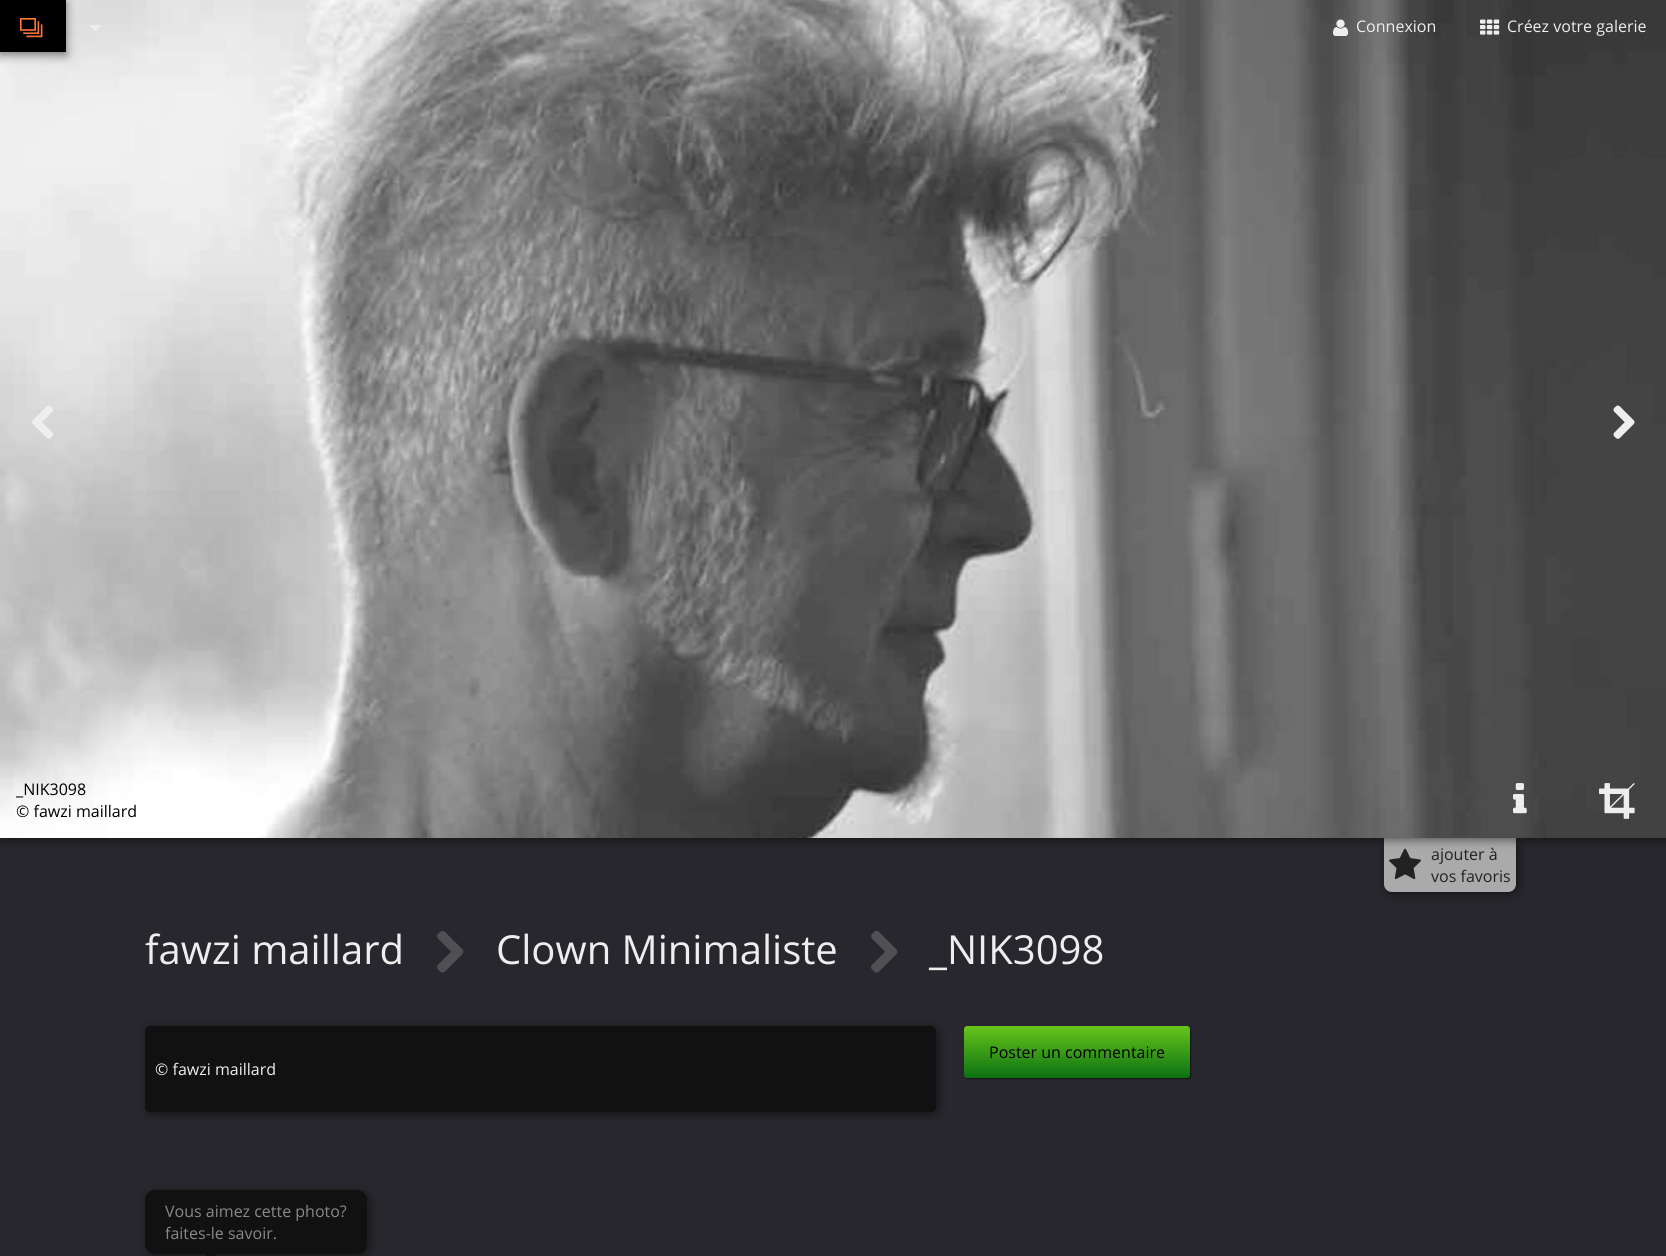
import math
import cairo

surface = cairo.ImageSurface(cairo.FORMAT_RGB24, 1666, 1256)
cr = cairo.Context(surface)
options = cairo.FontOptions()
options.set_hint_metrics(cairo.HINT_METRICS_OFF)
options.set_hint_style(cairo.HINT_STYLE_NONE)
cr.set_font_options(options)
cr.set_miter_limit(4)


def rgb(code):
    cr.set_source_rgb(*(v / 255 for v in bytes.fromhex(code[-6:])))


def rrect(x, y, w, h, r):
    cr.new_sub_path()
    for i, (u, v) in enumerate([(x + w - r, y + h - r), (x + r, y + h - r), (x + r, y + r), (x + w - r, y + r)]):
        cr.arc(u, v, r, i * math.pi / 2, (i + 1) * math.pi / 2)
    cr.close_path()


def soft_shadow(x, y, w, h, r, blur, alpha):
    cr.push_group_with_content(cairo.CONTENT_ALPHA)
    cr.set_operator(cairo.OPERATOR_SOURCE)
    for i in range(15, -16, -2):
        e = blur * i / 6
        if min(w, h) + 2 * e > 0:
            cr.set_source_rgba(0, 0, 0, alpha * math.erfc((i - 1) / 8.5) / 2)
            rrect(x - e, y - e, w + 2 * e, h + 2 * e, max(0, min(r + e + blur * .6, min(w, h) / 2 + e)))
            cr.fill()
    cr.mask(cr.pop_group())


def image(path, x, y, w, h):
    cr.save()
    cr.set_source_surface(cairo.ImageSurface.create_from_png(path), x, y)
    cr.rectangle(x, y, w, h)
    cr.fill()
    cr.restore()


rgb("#28272d")
cr.paint()
rgb("#000000")
soft_shadow(1386, 840, 132, 54, 8, 5, 0.5)
rgb("#aaaaaa")
cr.new_path()
cr.move_to(1384, 838)
cr.line_to(1516, 838)
cr.line_to(1516, 884)
cr.curve_to(1516, 888.5, 1512.5, 892, 1508, 892)
cr.line_to(1392, 892)
cr.curve_to(1387.5, 892, 1384, 888.5, 1384, 884)
cr.close_path()
cr.fill()
image("img/10.png", 1389, 848, 32, 32)
rgb("#000000")
soft_shadow(2, 2, 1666, 838, 0, 5, 0.5)
image("img/5.png", 0, 0, 1666, 838)
soft_shadow(0, 3, 66, 52, 0, 5, 0.5)
rgb("#000000")
cr.rectangle(0, 0, 66, 52)
cr.fill()
image("img/1.png", 20, 18, 23, 20)
image("img/2.png", 90, 25, 11, 6)
image("img/3.png", 1333, 19, 16, 17)
image("img/4.png", 1480, 19, 20, 16)
image("img/6.png", 32, 405, 21, 34)
image("img/7.png", 1613, 405, 22, 34)
image("img/8.png", 1513, 783, 14, 31)
image("img/9.png", 1599, 783, 36, 36)
image("img/11.png", 437, 931, 27, 42)
image("img/11.png", 871, 931, 27, 42)
rgb("#000000")
soft_shadow(965, 1027, 226, 52, 3, 0.5, 0.5)
gradient = cairo.LinearGradient(1077, 1026, 1077, 1078)
gradient.add_color_stop_rgba(0, 0.404, 0.773, 0.102, 1)
gradient.add_color_stop_rgba(1, 0.043, 0.443, 0.075, 1)
cr.set_source(gradient)
rrect(964, 1026, 226, 52, 3)
cr.fill()
rgb("#000000")
soft_shadow(147, 1028, 791, 86, 5, 5, 0.5)
rgb("#111111")
rrect(145, 1026, 791, 86, 5)
cr.fill()
rgb("#000000")
soft_shadow(147, 1192, 222, 64, 10, 5, 0.5)
rgb("#111111")
rrect(145, 1190, 222, 64, 10)
cr.fill()
cr.new_path()
cr.move_to(205, 1254)
cr.line_to(215, 1254)
cr.line_to(215, 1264)
cr.close_path()
cr.fill()
cr.select_font_face("Open Sans")
cr.set_font_size(16)
rgb("#eeeeee")
cr.move_to(1356, 32)
cr.show_text("Connexion")
cr.move_to(1507, 32)
cr.show_text("Créez votre galerie")
rgb("#000000")
cr.move_to(16, 795)
cr.show_text("_NIK3098")
cr.move_to(16, 817)
cr.show_text("© fawzi maillard")
rgb("#222222")
cr.move_to(1431, 860)
cr.show_text("ajouter à")
cr.move_to(1431, 882)
cr.show_text("vos favoris")
cr.set_font_size(40)
rgb("#eeeeee")
for x, y, s in [
    (145, 964, "fawzi maillard"),
    (496, 964, "Clown Minimaliste"),
    (929, 964, "_NIK3098"),
]:
    cr.move_to(x, y)
    cr.show_text(s)
cr.set_font_size(16)
rgb("#000000")
cr.move_to(989, 1058)
cr.show_text("Poster un commentaire")
rgb("#eeeeee")
cr.move_to(155, 1075)
cr.show_text("© fawzi maillard")
rgb("#888888")
cr.move_to(165, 1217)
cr.show_text("Vous aimez cette photo?")
cr.move_to(165, 1239)
cr.show_text("faites-le savoir.")
surface.write_to_png("page.png")
